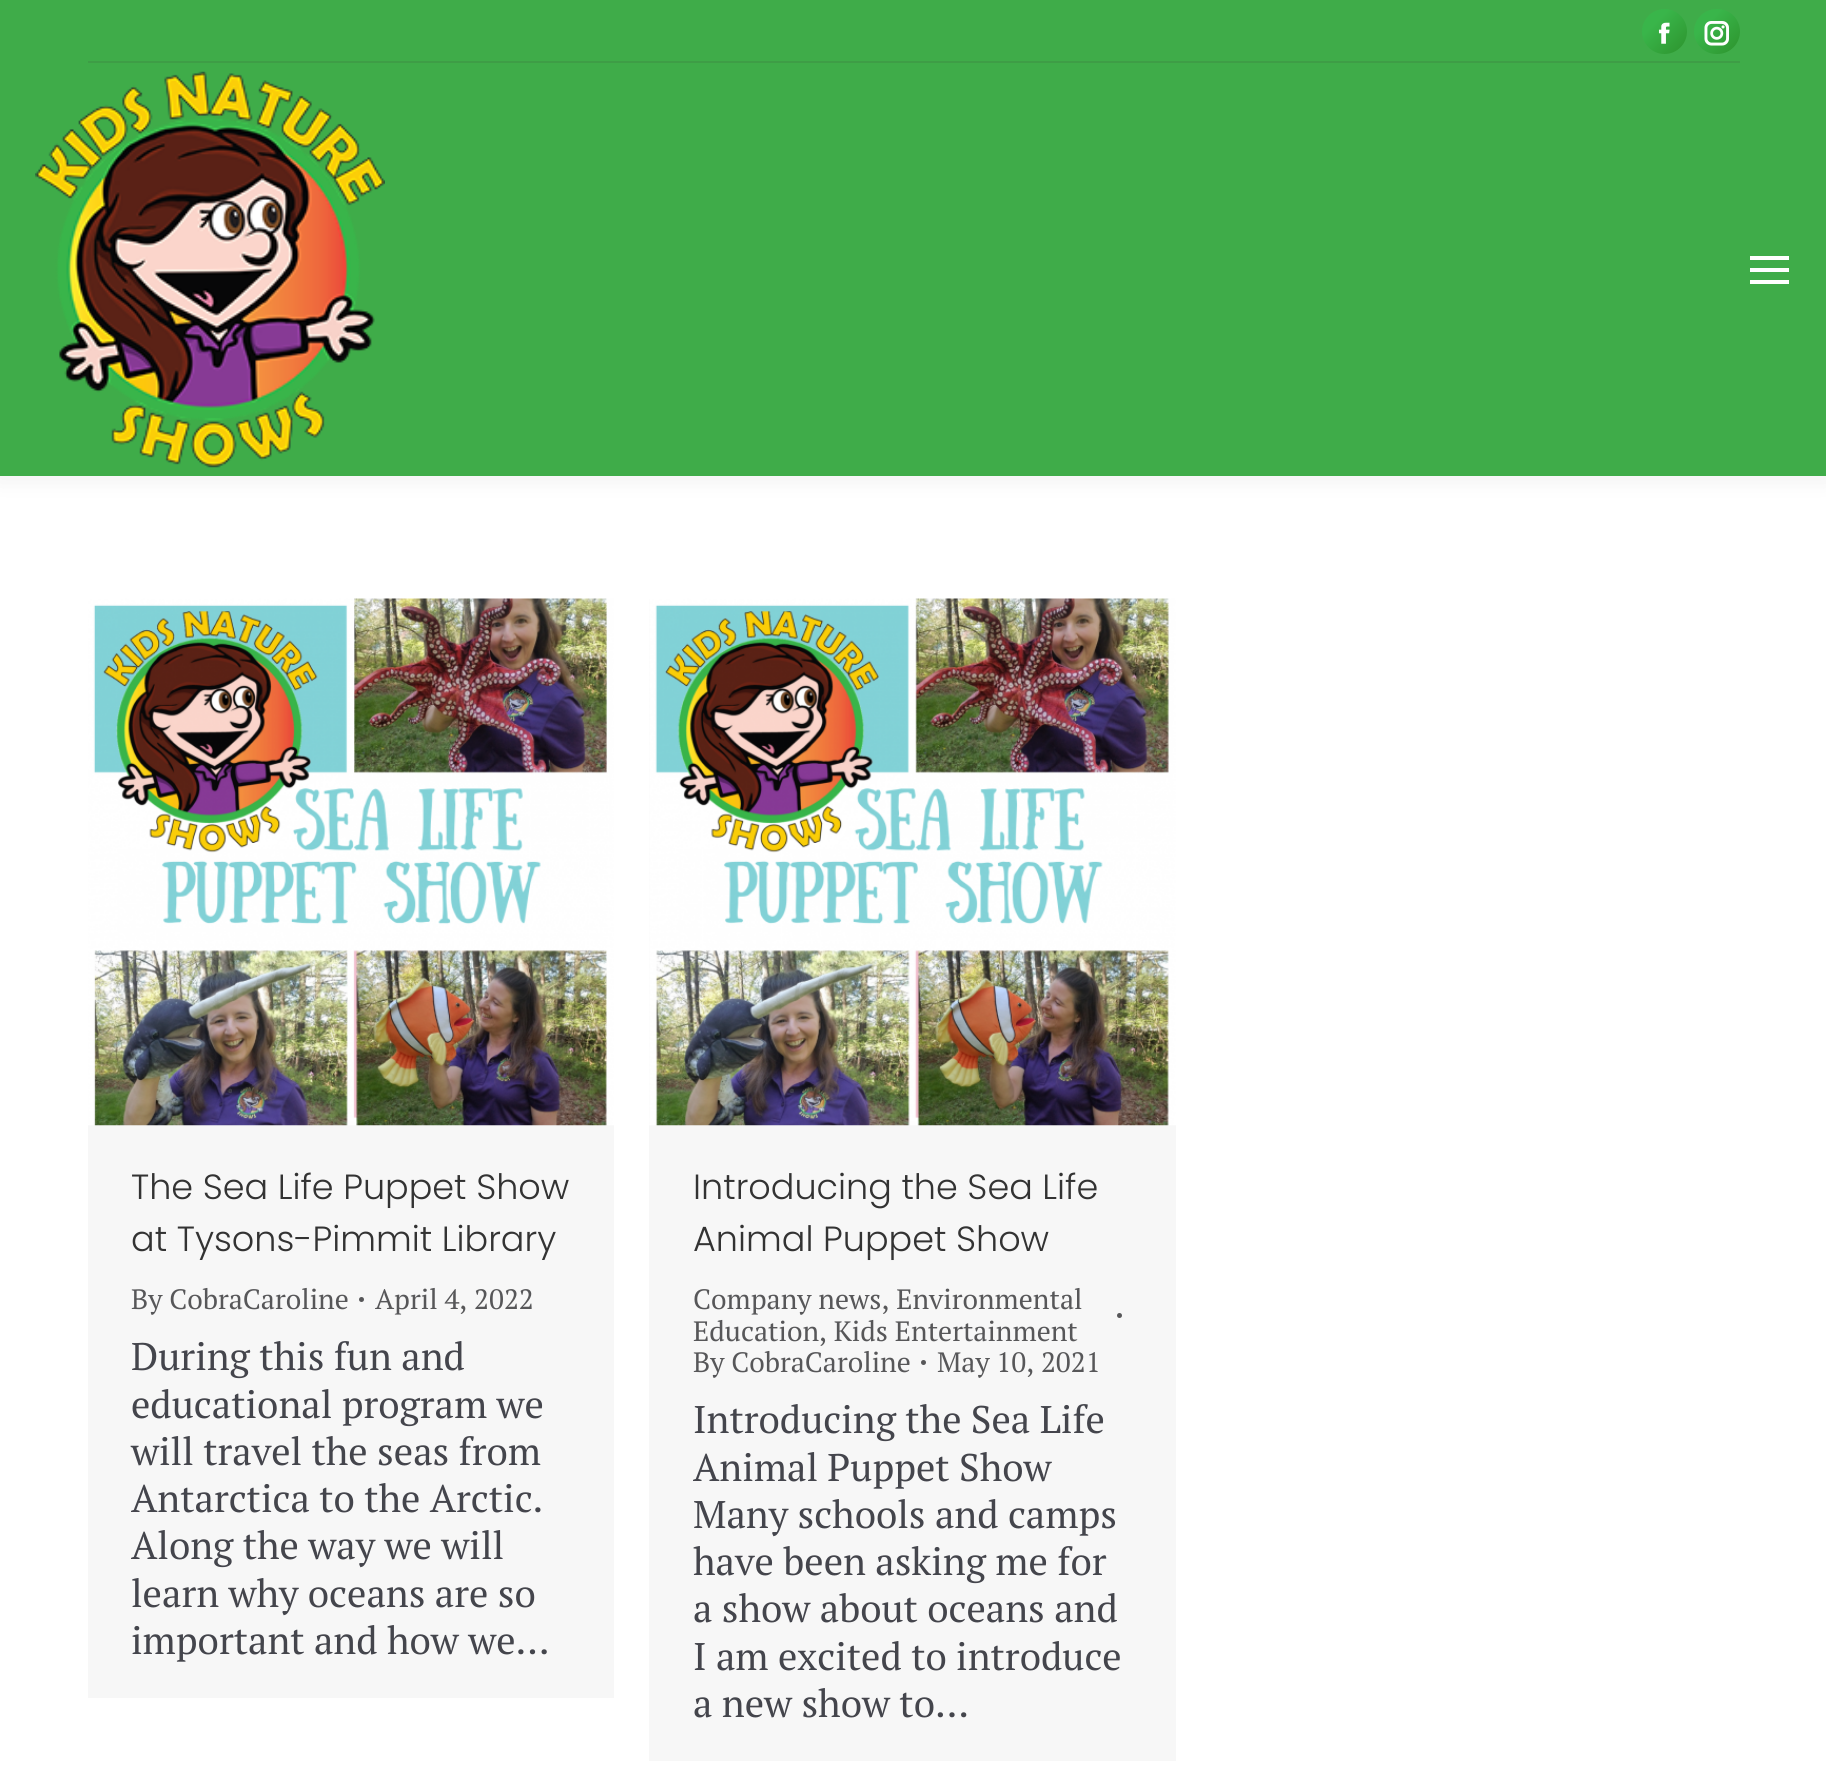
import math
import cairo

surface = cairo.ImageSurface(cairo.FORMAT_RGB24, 1826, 1782)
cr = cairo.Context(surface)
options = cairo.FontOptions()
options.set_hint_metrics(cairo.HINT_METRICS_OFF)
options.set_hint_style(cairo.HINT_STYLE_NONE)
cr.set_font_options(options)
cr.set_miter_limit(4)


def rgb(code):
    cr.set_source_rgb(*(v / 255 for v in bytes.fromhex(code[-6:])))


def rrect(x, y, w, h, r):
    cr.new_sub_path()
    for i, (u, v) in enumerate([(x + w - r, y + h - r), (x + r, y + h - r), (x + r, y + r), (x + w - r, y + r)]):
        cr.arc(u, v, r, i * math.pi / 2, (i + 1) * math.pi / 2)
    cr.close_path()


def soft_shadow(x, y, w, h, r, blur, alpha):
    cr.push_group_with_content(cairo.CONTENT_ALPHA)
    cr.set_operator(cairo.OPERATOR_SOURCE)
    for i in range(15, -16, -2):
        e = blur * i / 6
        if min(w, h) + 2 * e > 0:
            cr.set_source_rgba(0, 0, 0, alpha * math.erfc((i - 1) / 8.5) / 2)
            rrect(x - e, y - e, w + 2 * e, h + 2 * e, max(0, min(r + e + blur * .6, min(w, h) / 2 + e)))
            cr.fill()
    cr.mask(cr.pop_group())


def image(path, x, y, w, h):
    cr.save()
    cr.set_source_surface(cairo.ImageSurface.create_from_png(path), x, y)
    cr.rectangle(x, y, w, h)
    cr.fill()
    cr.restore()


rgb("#ffffff")
cr.paint()
rgb("#000000")
soft_shadow(-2, -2, 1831, 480, 0, 13, 0.07)
rgb("#3fac49")
cr.rectangle(0, 0, 1826, 476)
cr.fill()
gradient = cairo.LinearGradient(1642, 9, 1687, 54)
gradient.add_color_stop_rgba(0.3, 0.224, 0.71, 0.29, 1)
gradient.add_color_stop_rgba(1, 0.176, 0.576, 0.176, 1)
cr.set_source(gradient)
cr.arc(1664.5, 31.5, 22.5, 0, 2 * math.pi)
cr.fill()
image("img/1.png", 1658, 22, 12, 22)
gradient = cairo.LinearGradient(1694, 9, 1740, 54)
gradient.add_color_stop_rgba(0.3, 0.224, 0.71, 0.29, 1)
gradient.add_color_stop_rgba(1, 0.176, 0.576, 0.176, 1)
cr.set_source(gradient)
rrect(1694, 9, 46, 45, 22.5)
cr.fill()
image("img/2.png", 1704, 21, 25, 25)
rgb("#3e9d46")
cr.rectangle(88, 61, 1652, 2)
cr.fill()
image("img/3.png", 35, 71, 350, 397)
for x, y, w, h, color in [
    (1750, 256, 39, 4, "#ffffff"),
    (1750, 268, 39, 4, "#ffffff"),
    (1750, 280, 39, 4, "#ffffff"),
    (88, 1125, 526, 573, "#f7f7f7"),
]:
    rgb(color)
    cr.rectangle(x, y, w, h)
    cr.fill()
image("img/4.png", 88, 598, 526, 528)
rgb("#575759")
cr.arc(361.5, 1299.5, 2.5, 0, 2 * math.pi)
cr.fill()
rgb("#f7f7f7")
cr.rectangle(649, 599, 527, 1162)
cr.fill()
image("img/5.png", 649, 598, 527, 528)
rgb("#575759")
cr.arc(1119.5, 1315.5, 2.5, 0, 2 * math.pi)
cr.fill()
cr.arc(923.5, 1362.5, 2.5, 0, 2 * math.pi)
cr.fill()
cr.select_font_face("Poppins Light")
cr.set_font_size(35)
rgb("#333333")
cr.move_to(131, 1199)
cr.show_text("The Sea Life Puppet Show")
cr.move_to(131, 1251)
cr.show_text("at Tysons-Pimmit Library")
cr.select_font_face("PT Serif")
cr.set_font_size(28)
rgb("#575759")
cr.move_to(131, 1309)
cr.show_text("By CobraCaroline")
cr.move_to(375, 1309)
cr.show_text("April 4, 2022")
cr.set_font_size(38.5)
rgb("#44454c")
for x, y, s in [
    (131, 1370, "During this fun and"),
    (131, 1418, "educational program we"),
    (131, 1465, "will travel the seas from"),
    (131, 1512, "Antarctica to the Arctic."),
    (131, 1559, "Along the way we will"),
    (131, 1607, "learn why oceans are so"),
    (131, 1654, "important and how we…"),
]:
    cr.move_to(x, y)
    cr.show_text(s)
cr.select_font_face("Poppins Light")
cr.set_font_size(35)
rgb("#333333")
cr.move_to(693, 1199)
cr.show_text("Introducing the Sea Life")
cr.move_to(693, 1251)
cr.show_text("Animal Puppet Show")
cr.select_font_face("PT Serif")
cr.set_font_size(28)
rgb("#575759")
for x, y, s in [
    (693, 1309, "Company news, Environmental"),
    (693, 1341, "Education, Kids Entertainment"),
    (693, 1372, "By CobraCaroline"),
    (937, 1372, "May 10, 2021"),
]:
    cr.move_to(x, y)
    cr.show_text(s)
cr.set_font_size(38.5)
rgb("#44454c")
for x, y, s in [
    (693, 1433, "Introducing the Sea Life"),
    (693, 1481, "Animal Puppet Show"),
    (693, 1528, "Many schools and camps"),
    (693, 1575, "have been asking me for"),
    (693, 1622, "a show about oceans and"),
    (693, 1670, "I am excited to introduce"),
    (693, 1717, "a new show to…"),
]:
    cr.move_to(x, y)
    cr.show_text(s)
surface.write_to_png("page.png")
